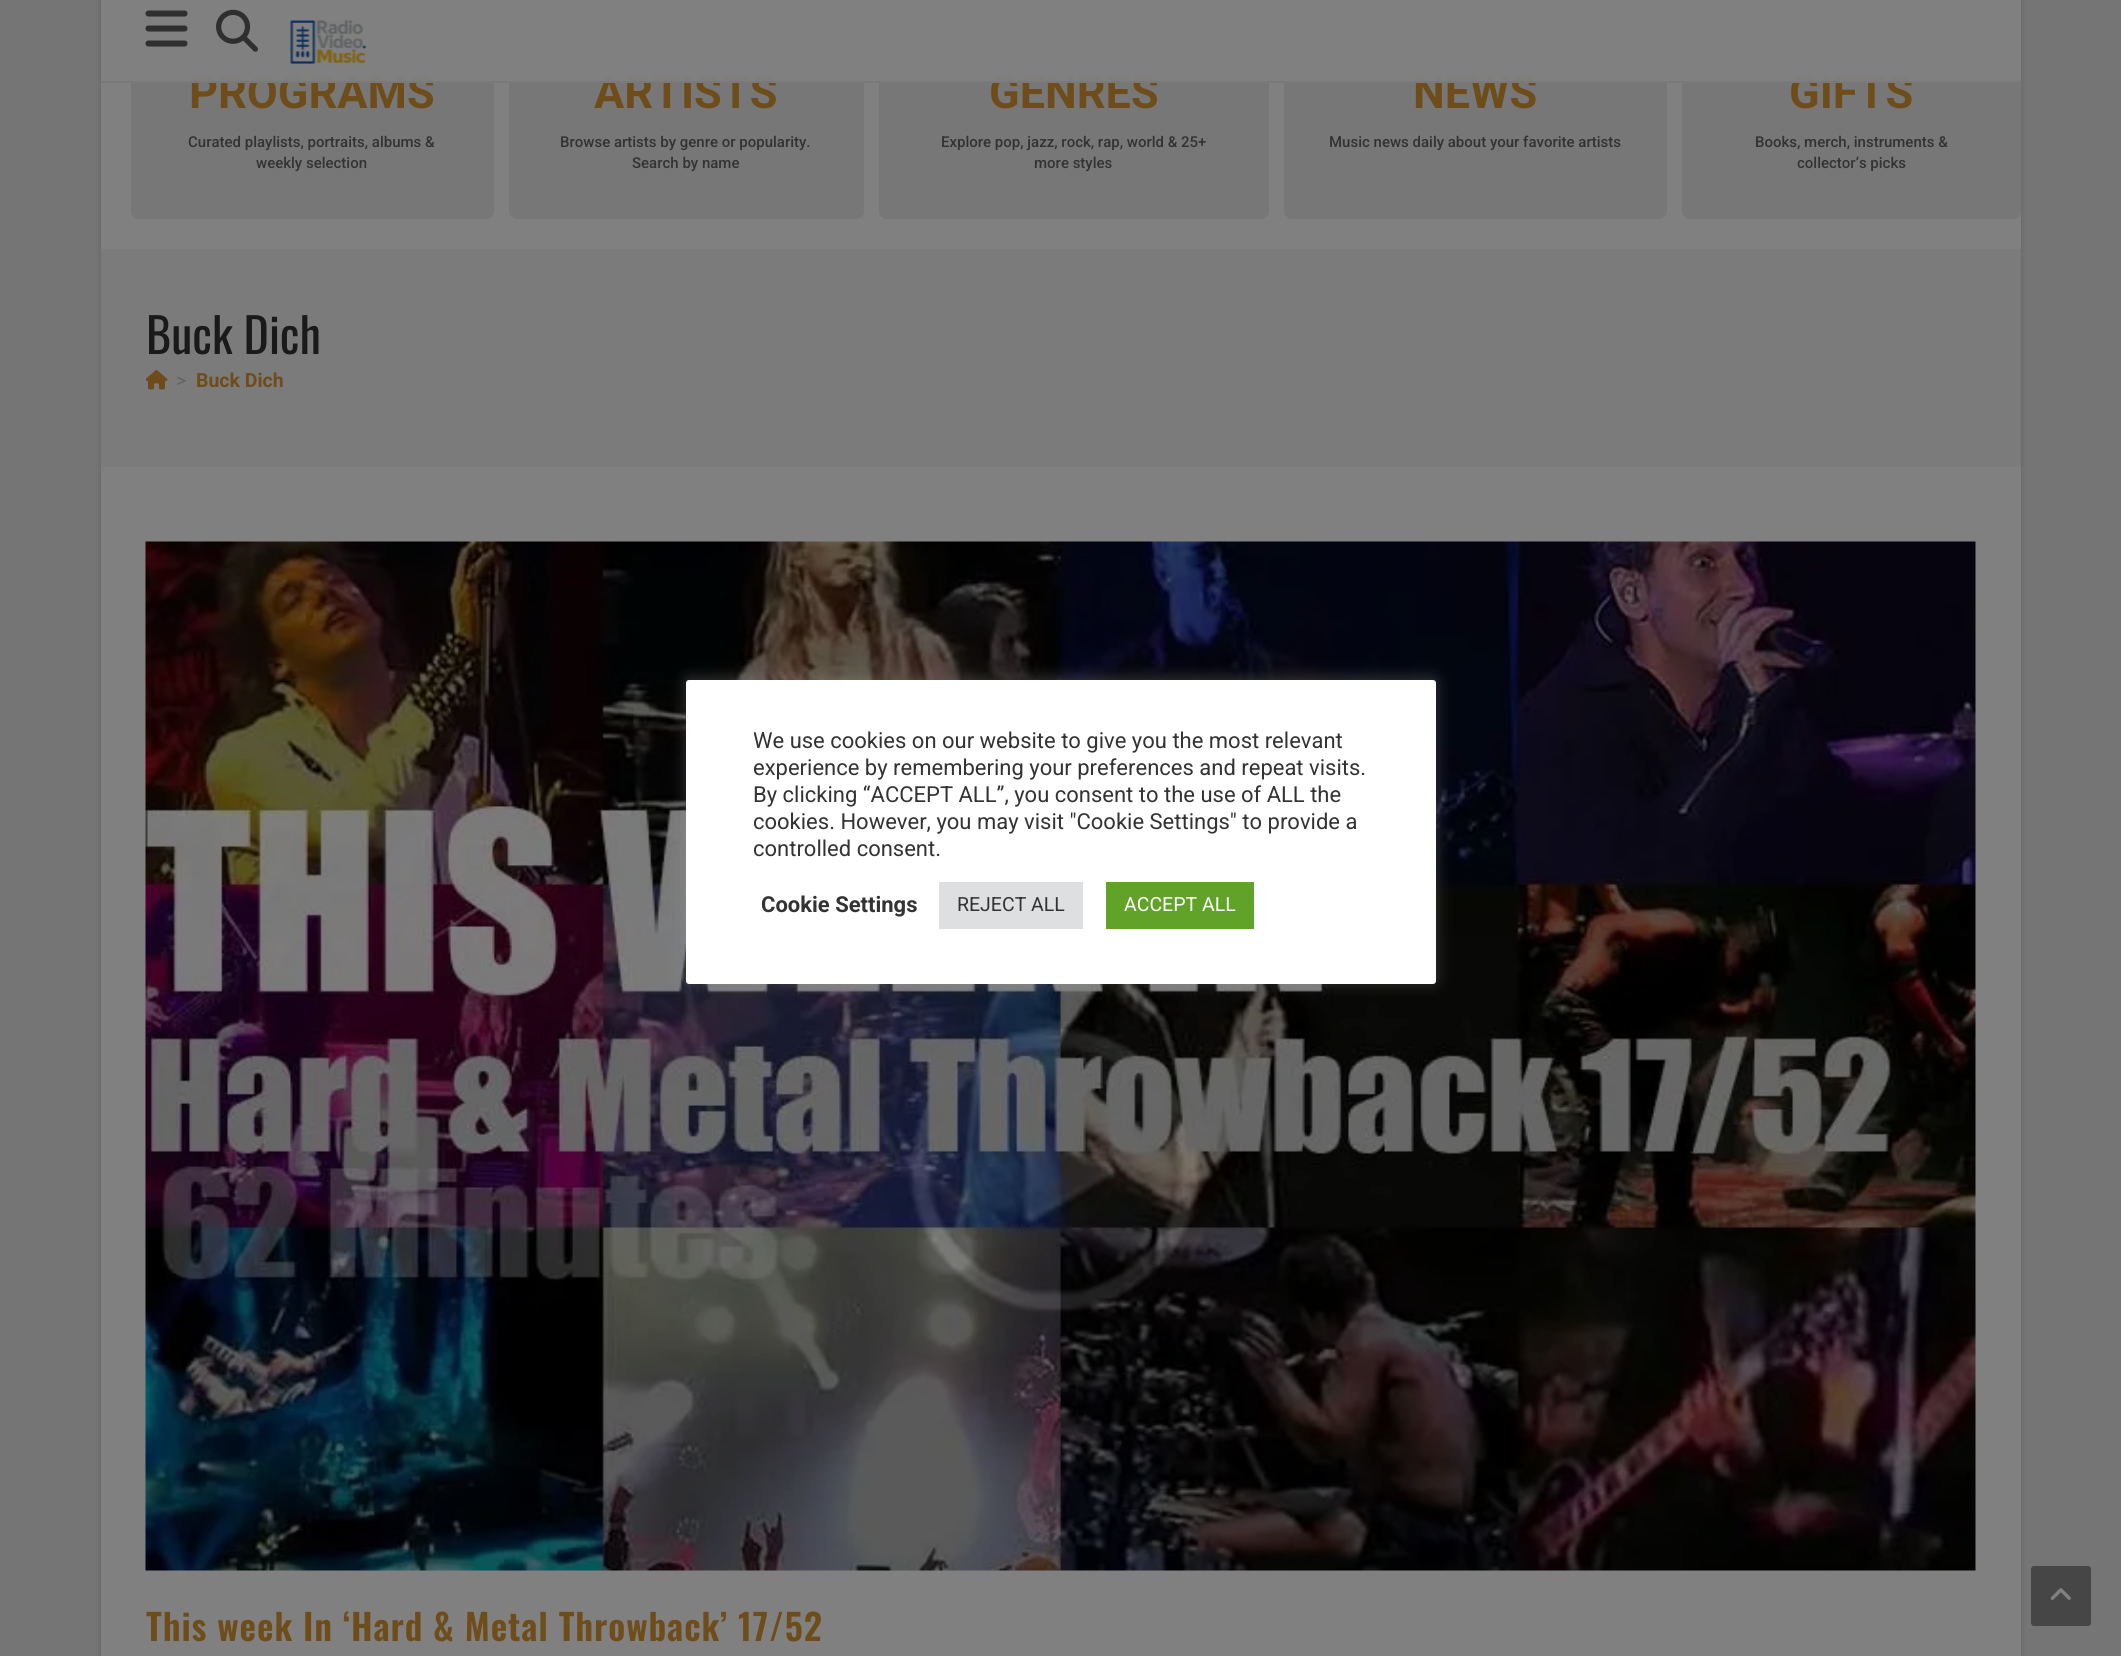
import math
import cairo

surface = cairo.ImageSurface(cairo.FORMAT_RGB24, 2121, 1656)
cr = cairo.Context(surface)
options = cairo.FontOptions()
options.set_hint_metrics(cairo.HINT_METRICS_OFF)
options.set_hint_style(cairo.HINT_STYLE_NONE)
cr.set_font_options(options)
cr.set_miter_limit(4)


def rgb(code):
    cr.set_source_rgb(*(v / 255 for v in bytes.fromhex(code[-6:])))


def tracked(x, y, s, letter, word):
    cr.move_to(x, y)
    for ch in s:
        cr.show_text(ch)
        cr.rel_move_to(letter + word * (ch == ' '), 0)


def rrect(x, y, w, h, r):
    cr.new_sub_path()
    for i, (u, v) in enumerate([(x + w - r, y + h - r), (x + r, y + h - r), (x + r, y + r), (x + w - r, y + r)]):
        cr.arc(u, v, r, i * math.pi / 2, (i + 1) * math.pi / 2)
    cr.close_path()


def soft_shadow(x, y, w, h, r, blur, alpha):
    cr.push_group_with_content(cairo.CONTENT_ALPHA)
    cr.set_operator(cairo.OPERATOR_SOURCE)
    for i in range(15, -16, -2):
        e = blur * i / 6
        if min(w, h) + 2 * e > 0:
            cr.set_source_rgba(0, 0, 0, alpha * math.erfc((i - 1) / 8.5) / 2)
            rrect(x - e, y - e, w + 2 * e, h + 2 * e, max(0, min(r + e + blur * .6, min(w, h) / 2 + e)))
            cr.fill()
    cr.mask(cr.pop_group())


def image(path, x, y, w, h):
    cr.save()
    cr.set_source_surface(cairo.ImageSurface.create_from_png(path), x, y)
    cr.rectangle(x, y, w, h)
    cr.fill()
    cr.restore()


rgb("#757575")
cr.paint()
rgb("#000000")
soft_shadow(101, -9, 1920, 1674, 0, 3, 0.15)
rgb("#808080")
cr.rectangle(101, 0, 1920, 1656)
cr.fill()
rgb("#777777")
rrect(131, -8, 363, 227, 8)
cr.fill()
rrect(509, -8, 355, 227, 8)
cr.fill()
rrect(879, -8, 390, 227, 8)
cr.fill()
rrect(1284, -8, 383, 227, 8)
cr.fill()
rrect(1682, -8, 339, 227, 8)
cr.fill()
rgb("#7b7b7b")
cr.rectangle(101, 249, 1920, 218)
cr.fill()
image("img/4.png", 146, 370, 22, 20)
image("img/5.png", 145, 541, 1831, 1030)
rgb("#acabab")
soft_shadow(686, 678, 750, 305, 3, 7.5, 0.3)
rgb("#ffffff")
rrect(686, 680, 750, 304, 3)
cr.fill()
rgb("#dedfe0")
cr.rectangle(939, 882, 144, 47)
cr.fill()
rgb("#61a229")
cr.rectangle(1106, 882, 148, 47)
cr.fill()
rgb("#464646")
rrect(2031, 1566, 60, 60, 3)
cr.fill()
image("img/6.png", 2050, 1588, 21, 12)
cr.select_font_face("Roboto", cairo.FONT_SLANT_NORMAL, cairo.FONT_WEIGHT_BOLD)
cr.set_font_size(45)
rgb("#6f4d1a")
cr.move_to(189, 108)
cr.show_text("PROGRAMS")
cr.select_font_face("Roboto Medium")
cr.set_font_size(15)
rgb("#333333")
cr.move_to(188, 147)
cr.show_text("Curated playlists, portraits, albums &")
cr.move_to(256, 168)
cr.show_text("weekly selection")
cr.select_font_face("Roboto", cairo.FONT_SLANT_NORMAL, cairo.FONT_WEIGHT_BOLD)
cr.set_font_size(45)
rgb("#6f4d1a")
cr.move_to(594, 108)
cr.show_text("ARTISTS")
cr.select_font_face("Roboto Medium")
cr.set_font_size(15)
rgb("#333333")
cr.move_to(560, 147)
cr.show_text("Browse artists by genre or popularity.")
cr.move_to(632, 168)
cr.show_text("Search by name")
cr.select_font_face("Roboto", cairo.FONT_SLANT_NORMAL, cairo.FONT_WEIGHT_BOLD)
cr.set_font_size(45)
rgb("#6f4d1a")
cr.move_to(989, 108)
cr.show_text("GENRES")
cr.select_font_face("Roboto Medium")
cr.set_font_size(15)
rgb("#333333")
cr.move_to(941, 147)
cr.show_text("Explore pop, jazz, rock, rap, world & 25+")
cr.move_to(1034, 168)
cr.show_text("more styles")
cr.select_font_face("Roboto", cairo.FONT_SLANT_NORMAL, cairo.FONT_WEIGHT_BOLD)
cr.set_font_size(45)
rgb("#6f4d1a")
cr.move_to(1413, 108)
cr.show_text("NEWS")
cr.select_font_face("Roboto Medium")
cr.set_font_size(15)
rgb("#333333")
cr.move_to(1329, 147)
cr.show_text("Music news daily about your favorite artists")
cr.select_font_face("Roboto", cairo.FONT_SLANT_NORMAL, cairo.FONT_WEIGHT_BOLD)
cr.set_font_size(45)
rgb("#6f4d1a")
cr.move_to(1789, 108)
cr.show_text("GIFTS")
cr.set_source_rgba(0.502, 0.502, 0.502, 0.95)
cr.rectangle(131, 0, 1890, 83)
cr.fill()
image("img/2.png", 216, 9, 42, 43)
image("img/1.png", 145, 10, 43, 37)
image("img/3.png", 290, 20, 77, 44)
cr.set_source_rgba(0.475, 0.475, 0.475, 0.95)
cr.rectangle(101, 81, 1920, 2)
cr.fill()
cr.select_font_face("Roboto Medium")
cr.set_font_size(15)
rgb("#333333")
cr.move_to(1755, 147)
cr.show_text("Books, merch, instruments &")
cr.move_to(1797, 168)
cr.show_text("collector’s picks")
cr.select_font_face("Oswald")
cr.set_font_size(48)
rgb("#1a1a1a")
cr.move_to(146, 354)
cr.show_text("Buck Dich")
cr.select_font_face("Roboto")
cr.set_font_size(19.5)
rgb("#636363")
cr.move_to(176, 387)
cr.show_text(">")
cr.select_font_face("Roboto", cairo.FONT_SLANT_NORMAL, cairo.FONT_WEIGHT_BOLD)
rgb("#6f4d1a")
cr.move_to(196, 387)
cr.show_text("Buck Dich")
cr.select_font_face("Oswald SemiBold")
cr.set_font_size(36)
tracked(146, 1641, "This week In ‘Hard & Metal Throwback’ 17/52", 0.9, 0)
cr.select_font_face("Roboto")
cr.set_font_size(22)
rgb("#333333")
for x, y, s in [
    (753, 748, "We use cookies on our website to give you the most relevant"),
    (753, 775, "experience by remembering your preferences and repeat visits."),
    (753, 802, "By clicking “ACCEPT ALL”, you consent to the use of ALL the"),
    (753, 829, "cookies. However, you may visit \"Cookie Settings\" to provide a"),
    (753, 856, "controlled consent."),
]:
    cr.move_to(x, y)
    cr.show_text(s)
cr.select_font_face("Roboto", cairo.FONT_SLANT_NORMAL, cairo.FONT_WEIGHT_BOLD)
cr.move_to(761, 912)
cr.show_text("Cookie Settings")
cr.select_font_face("Roboto")
cr.set_font_size(19.5)
cr.move_to(957, 911)
cr.show_text("REJECT ALL")
rgb("#ffffff")
cr.move_to(1124, 911)
cr.show_text("ACCEPT ALL")
surface.write_to_png("page.png")
